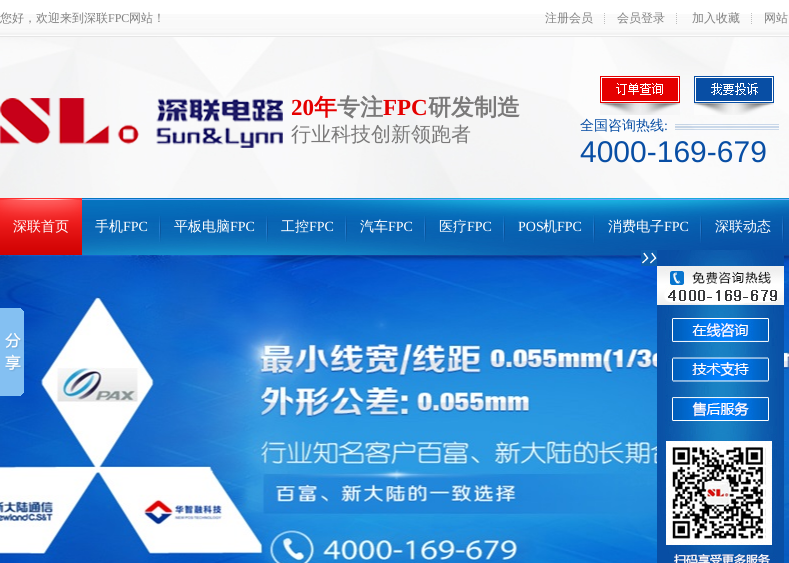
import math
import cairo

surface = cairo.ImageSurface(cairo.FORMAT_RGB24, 789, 563)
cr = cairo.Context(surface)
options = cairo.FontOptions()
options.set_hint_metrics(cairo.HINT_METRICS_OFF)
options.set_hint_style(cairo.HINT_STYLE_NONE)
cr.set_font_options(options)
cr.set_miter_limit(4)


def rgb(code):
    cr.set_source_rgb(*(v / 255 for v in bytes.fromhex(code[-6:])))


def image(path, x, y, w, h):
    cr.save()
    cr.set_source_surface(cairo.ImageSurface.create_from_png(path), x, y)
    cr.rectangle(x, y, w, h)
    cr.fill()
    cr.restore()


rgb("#ffffff")
cr.paint()
image("img/1.png", 0, 14, 789, 241)
image("img/2.png", 604, 13, 1, 11)
image("img/2.png", 676, 13, 1, 11)
image("img/2.png", 751, 13, 1, 11)
image("img/3.png", 0, 98, 283, 50)
image("img/4.png", 600, 76, 80, 39)
image("img/5.png", 694, 76, 80, 39)
image("img/6.png", 675, 124, 104, 6)
image("img/7.png", 0, 198, 82, 57)
image("img/8.png", 159, 216, 2, 26)
image("img/9.png", 266, 216, 2, 26)
image("img/10.png", 345, 216, 2, 26)
image("img/11.png", 424, 216, 2, 26)
image("img/12.png", 503, 216, 2, 26)
image("img/13.png", 593, 215, 2, 28)
image("img/14.png", 700, 216, 2, 27)
image("img/15.png", 782, 216, 2, 27)
image("img/18.png", 0, 255, 789, 308)
image("img/16.png", 641, 250, 16, 16)
image("img/17.png", 657, 250, 127, 313)
image("img/19.png", 0, 308, 24, 88)
cr.select_font_face("WenQuanYi Zen Hei Medium")
cr.set_font_size(12)
rgb("#828282")
cr.move_to(0, 22)
cr.show_text("您好，欢迎来到深联")
cr.select_font_face("Liberation Serif")
cr.move_to(108, 22)
cr.show_text("FPC")
cr.select_font_face("WenQuanYi Zen Hei Medium")
for x, y, s in [
    (129, 22, "网站！"),
    (545, 22, "注册会员"),
    (617, 22, "会员登录"),
    (692, 22, "加入收藏"),
    (764, 22, "网站"),
]:
    cr.move_to(x, y)
    cr.show_text(s)
cr.select_font_face("Liberation Serif", cairo.FONT_SLANT_NORMAL, cairo.FONT_WEIGHT_BOLD)
cr.set_font_size(23)
rgb("#e50000")
cr.move_to(291, 115)
cr.show_text("20")
cr.select_font_face("WenQuanYi Zen Hei", cairo.FONT_SLANT_NORMAL, cairo.FONT_WEIGHT_BOLD)
cr.move_to(314, 115)
cr.show_text("年")
rgb("#7a7979")
cr.move_to(337, 115)
cr.show_text("专注")
cr.select_font_face("Liberation Serif", cairo.FONT_SLANT_NORMAL, cairo.FONT_WEIGHT_BOLD)
rgb("#e50000")
cr.move_to(383, 115)
cr.show_text("FPC")
cr.select_font_face("WenQuanYi Zen Hei", cairo.FONT_SLANT_NORMAL, cairo.FONT_WEIGHT_BOLD)
rgb("#7a7979")
cr.move_to(428, 115)
cr.show_text("研发制造")
cr.select_font_face("WenQuanYi Zen Hei Medium")
cr.set_font_size(20)
cr.move_to(291, 141)
cr.show_text("行业科技创新领跑者")
cr.set_font_size(14)
rgb("#084ea4")
cr.move_to(580, 130)
cr.show_text("全国咨询热线")
cr.select_font_face("Liberation Serif")
cr.move_to(664, 130)
cr.show_text(":")
cr.select_font_face("Liberation Sans")
cr.set_font_size(30)
cr.move_to(580, 162)
cr.show_text("4000-169-679")
cr.select_font_face("WenQuanYi Zen Hei Medium")
cr.set_font_size(14)
rgb("#ffffff")
cr.move_to(13, 231)
cr.show_text("深联首页")
cr.move_to(95, 231)
cr.show_text("手机")
cr.select_font_face("Liberation Serif")
cr.move_to(123, 231)
cr.show_text("FPC")
cr.select_font_face("WenQuanYi Zen Hei Medium")
cr.move_to(174, 231)
cr.show_text("平板电脑")
cr.select_font_face("Liberation Serif")
cr.move_to(230, 231)
cr.show_text("FPC")
cr.select_font_face("WenQuanYi Zen Hei Medium")
cr.move_to(281, 231)
cr.show_text("工控")
cr.select_font_face("Liberation Serif")
cr.move_to(309, 231)
cr.show_text("FPC")
cr.select_font_face("WenQuanYi Zen Hei Medium")
cr.move_to(360, 231)
cr.show_text("汽车")
cr.select_font_face("Liberation Serif")
cr.move_to(388, 231)
cr.show_text("FPC")
cr.select_font_face("WenQuanYi Zen Hei Medium")
cr.move_to(439, 231)
cr.show_text("医疗")
cr.select_font_face("Liberation Serif")
cr.move_to(467, 231)
cr.show_text("FPC")
cr.move_to(518, 231)
cr.show_text("POS")
cr.select_font_face("WenQuanYi Zen Hei Medium")
cr.move_to(543, 231)
cr.show_text("机")
cr.select_font_face("Liberation Serif")
cr.move_to(557, 231)
cr.show_text("FPC")
cr.select_font_face("WenQuanYi Zen Hei Medium")
cr.move_to(608, 231)
cr.show_text("消费电子")
cr.select_font_face("Liberation Serif")
cr.move_to(664, 231)
cr.show_text("FPC")
cr.select_font_face("WenQuanYi Zen Hei Medium")
cr.move_to(715, 231)
cr.show_text("深联动态")
surface.write_to_png("page.png")
